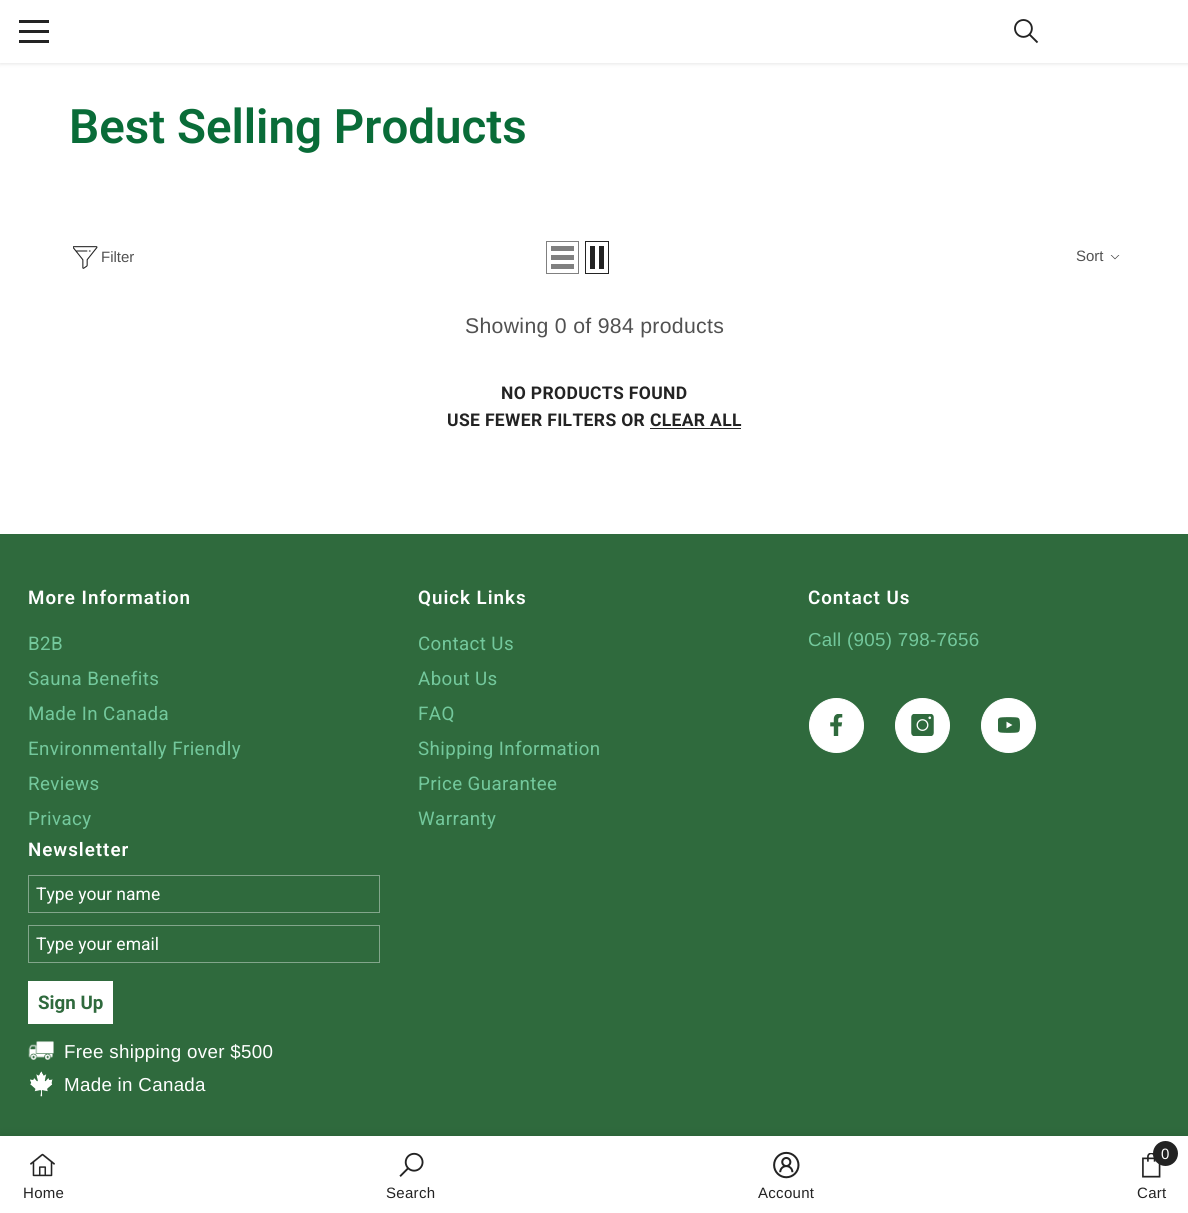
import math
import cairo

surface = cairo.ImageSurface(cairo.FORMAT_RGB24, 1188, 1213)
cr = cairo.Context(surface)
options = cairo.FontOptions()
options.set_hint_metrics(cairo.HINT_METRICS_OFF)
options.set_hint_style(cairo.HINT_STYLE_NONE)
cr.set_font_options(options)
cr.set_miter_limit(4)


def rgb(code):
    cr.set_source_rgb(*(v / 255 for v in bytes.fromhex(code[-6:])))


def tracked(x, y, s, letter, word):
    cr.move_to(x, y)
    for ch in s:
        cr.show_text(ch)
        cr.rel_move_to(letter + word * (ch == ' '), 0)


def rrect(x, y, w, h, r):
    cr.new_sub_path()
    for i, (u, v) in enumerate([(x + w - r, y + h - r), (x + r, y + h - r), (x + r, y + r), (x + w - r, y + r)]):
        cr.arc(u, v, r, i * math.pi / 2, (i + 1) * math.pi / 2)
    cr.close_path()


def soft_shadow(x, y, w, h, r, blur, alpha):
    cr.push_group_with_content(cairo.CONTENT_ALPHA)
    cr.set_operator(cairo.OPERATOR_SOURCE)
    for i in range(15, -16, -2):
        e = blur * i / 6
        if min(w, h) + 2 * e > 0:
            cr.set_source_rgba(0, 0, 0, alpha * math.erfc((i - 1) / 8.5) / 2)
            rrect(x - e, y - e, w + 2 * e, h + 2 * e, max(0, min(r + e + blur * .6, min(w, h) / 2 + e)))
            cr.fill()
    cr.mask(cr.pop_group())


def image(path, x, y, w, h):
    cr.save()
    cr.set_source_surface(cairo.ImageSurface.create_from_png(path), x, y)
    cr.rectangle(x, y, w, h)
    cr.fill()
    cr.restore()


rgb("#ffffff")
cr.paint()
rgb("#000000")
soft_shadow(0, 1, 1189, 63, 0, 2, 0.1)
for x, y, w, h, color in [
    (0, 0, 1188, 63, "#ffffff"),
    (19, 30, 30, 3, "#232323"),
    (19, 20, 30, 3, "#232323"),
    (19, 40, 30, 3, "#232323"),
]:
    rgb(color)
    cr.rectangle(x, y, w, h)
    cr.fill()
image("img/1.png", 1014, 19, 25, 25)
image("img/2.png", 73, 246, 25, 23)
cr.rectangle(546.5, 241.5, 32, 32)
rgb("#808080")
cr.set_line_width(1)
cr.stroke()
for x, y, w, h, color in [
    (551, 264, 23, 5, "#808080"),
    (551, 255, 23, 5, "#808080"),
    (551, 246, 23, 5, "#808080"),
]:
    rgb(color)
    cr.rectangle(x, y, w, h)
    cr.fill()
cr.rectangle(585.5, 241.5, 23, 32)
rgb("#232323")
cr.stroke()
cr.rectangle(599, 246, 5, 23)
cr.fill()
cr.rectangle(590, 246, 5, 23)
cr.fill()
image("img/3.png", 1110, 255, 10, 5)
cr.rectangle(650, 428, 91, 1)
cr.fill()
rgb("#2f6a3d")
cr.rectangle(0, 534, 1188, 602)
cr.fill()
rgb("#ffffff")
cr.arc(836.5, 725.5, 27, 0, 2 * math.pi)
cr.fill_preserve()
cr.stroke()
image("img/4.png", 830, 714, 13, 22)
cr.arc(922.5, 725.5, 27, 0, 2 * math.pi)
cr.fill_preserve()
cr.stroke()
image("img/5.png", 911, 714, 23, 22)
cr.arc(1008.5, 725.5, 27, 0, 2 * math.pi)
cr.fill_preserve()
cr.stroke()
image("img/6.png", 998, 717, 22, 16)
cr.rectangle(28.5, 875.5, 351, 37)
rgb("#82a68b")
cr.stroke()
cr.rectangle(28.5, 925.5, 351, 37)
cr.stroke()
rgb("#ffffff")
cr.rectangle(28, 981, 85, 43)
cr.fill()
image("img/7.png", 28, 1041, 26, 19)
image("img/8.png", 30, 1071, 23, 26)
rgb("#000000")
soft_shadow(0, 1136, 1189, 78, 0, 5.5, 0.12)
rgb("#ffffff")
cr.rectangle(0, 1136, 1188, 77)
cr.fill()
image("img/9.png", 30, 1153, 25, 24)
image("img/10.png", 399, 1152, 25, 25)
image("img/11.png", 773, 1151, 27, 28)
image("img/12.png", 1142, 1153, 19, 25)
rgb("#232323")
cr.arc(1165.5, 1153.5, 12.5, 0, 2 * math.pi)
cr.fill()
cr.select_font_face("Roboto SemiBold")
cr.set_font_size(47.5)
rgb("#096c38")
cr.move_to(69, 143)
cr.show_text("Best Selling Products")
cr.select_font_face("Liberation Sans")
cr.set_font_size(15)
rgb("#515151")
cr.move_to(101, 262)
cr.show_text("Filter")
cr.move_to(1076, 261)
cr.show_text("Sort")
cr.set_font_size(21.25)
tracked(465, 333, "Showing 0 of 984 products", 0.3, 0)
cr.select_font_face("Roboto", cairo.FONT_SLANT_NORMAL, cairo.FONT_WEIGHT_BOLD)
cr.set_font_size(17.5)
rgb("#232323")
tracked(501, 399, "NO PRODUCTS FOUND", 0.35, 0)
tracked(447, 426, "USE FEWER FILTERS OR CLEAR ALL", 0.35, 0)
cr.select_font_face("Roboto SemiBold")
cr.set_font_size(18.75)
rgb("#ffffff")
tracked(28, 604, "More Information", 1, 0)
cr.select_font_face("Roboto")
rgb("#73c89c")
for x, y, s in [
    (28, 650, "B2B"),
    (28, 685, "Sauna Benefits"),
    (28, 720, "Made In Canada"),
    (28, 755, "Environmentally Friendly"),
    (28, 790, "Reviews"),
    (28, 825, "Privacy"),
]:
    tracked(x, y, s, 0.4, 0)
cr.select_font_face("Roboto SemiBold")
rgb("#ffffff")
tracked(418, 604, "Quick Links", 1, 0)
cr.select_font_face("Roboto")
rgb("#73c89c")
for x, y, s in [
    (418, 650, "Contact Us"),
    (418, 685, "About Us"),
    (418, 720, "FAQ"),
    (418, 755, "Shipping Information"),
    (418, 790, "Price Guarantee"),
    (418, 825, "Warranty"),
]:
    tracked(x, y, s, 0.4, 0)
cr.select_font_face("Roboto SemiBold")
rgb("#ffffff")
tracked(808, 604, "Contact Us", 1, 0)
cr.select_font_face("Liberation Sans")
rgb("#73c89c")
tracked(808, 646, "Call (905) 798-7656", 0.3, 0)
cr.select_font_face("Roboto SemiBold")
rgb("#ffffff")
tracked(28, 856, "Newsletter", 1, 0)
cr.select_font_face("Roboto")
cr.set_font_size(17.5)
cr.move_to(36, 900)
cr.show_text("Type your name")
cr.move_to(36, 950)
cr.show_text("Type your email")
cr.select_font_face("Roboto", cairo.FONT_SLANT_NORMAL, cairo.FONT_WEIGHT_BOLD)
cr.set_font_size(18.75)
rgb("#2f6a3d")
cr.move_to(38, 1009)
cr.show_text("Sign Up")
cr.select_font_face("Liberation Sans")
rgb("#ffffff")
tracked(64, 1058, "Free shipping over $500", 0.3, 0)
tracked(64, 1091, "Made in Canada", 0.3, 0)
cr.set_font_size(15)
rgb("#232323")
for x, y, s in [
    (23, 1198, "Home"),
    (386, 1198, "Search"),
    (758, 1198, "Account"),
]:
    tracked(x, y, s, 0.3, 0)
rgb("#ffffff")
cr.move_to(1161, 1159)
cr.show_text("0")
rgb("#232323")
tracked(1137, 1198, "Cart", 0.3, 0)
surface.write_to_png("page.png")
